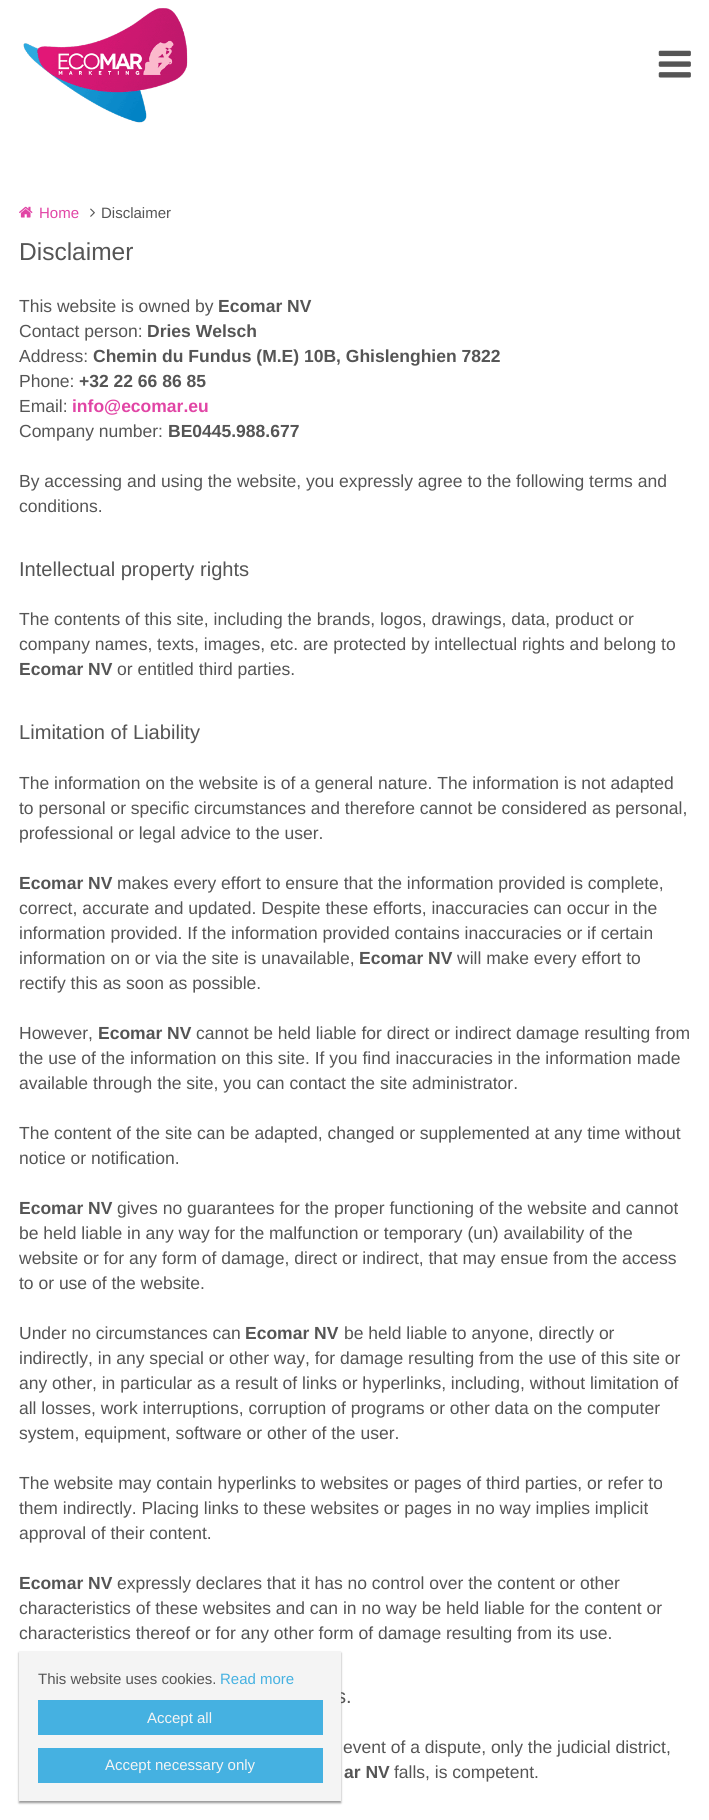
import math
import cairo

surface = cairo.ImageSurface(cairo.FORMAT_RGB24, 709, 1820)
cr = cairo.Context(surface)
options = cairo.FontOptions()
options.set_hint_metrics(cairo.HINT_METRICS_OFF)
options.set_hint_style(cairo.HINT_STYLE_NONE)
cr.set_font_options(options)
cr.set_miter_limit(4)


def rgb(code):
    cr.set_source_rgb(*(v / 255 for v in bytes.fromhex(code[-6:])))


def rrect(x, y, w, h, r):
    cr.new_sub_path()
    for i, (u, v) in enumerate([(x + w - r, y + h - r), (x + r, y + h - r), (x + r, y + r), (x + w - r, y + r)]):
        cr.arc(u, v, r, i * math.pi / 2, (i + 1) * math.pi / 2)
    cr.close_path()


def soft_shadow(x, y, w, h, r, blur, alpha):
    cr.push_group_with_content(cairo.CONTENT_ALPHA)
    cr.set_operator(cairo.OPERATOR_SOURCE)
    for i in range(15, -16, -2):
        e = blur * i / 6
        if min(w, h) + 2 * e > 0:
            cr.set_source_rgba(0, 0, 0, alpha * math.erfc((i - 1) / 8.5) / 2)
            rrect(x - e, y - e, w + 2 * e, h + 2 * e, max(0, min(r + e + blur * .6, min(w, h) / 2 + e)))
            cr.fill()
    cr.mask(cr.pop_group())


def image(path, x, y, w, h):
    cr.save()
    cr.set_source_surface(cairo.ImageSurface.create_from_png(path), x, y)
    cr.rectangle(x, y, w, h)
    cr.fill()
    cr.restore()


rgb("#ffffff")
cr.paint()
image("img/1.png", 23, 8, 165, 115)
image("img/2.png", 658, 50, 33, 28)
image("img/3.png", 19, 206, 14, 12)
image("img/4.png", 90, 208, 5, 9)
rgb("#999999")
soft_shadow(19, 1653, 322, 150, 0, 1, 1)
cr.select_font_face("Arimo")
cr.set_font_size(15)
rgb("#e145a5")
cr.move_to(39, 218)
cr.show_text("Home")
rgb("#555555")
cr.move_to(101, 218)
cr.show_text("Disclaimer")
cr.set_font_size(24.5)
cr.move_to(19, 260)
cr.show_text("Disclaimer")
cr.set_font_size(17.5)
cr.move_to(19, 312)
cr.show_text("This website is owned by")
cr.select_font_face("Arimo", cairo.FONT_SLANT_NORMAL, cairo.FONT_WEIGHT_BOLD)
cr.move_to(218, 312)
cr.show_text("Ecomar NV")
cr.select_font_face("Arimo")
cr.move_to(19, 337)
cr.show_text("Contact person:")
cr.select_font_face("Arimo", cairo.FONT_SLANT_NORMAL, cairo.FONT_WEIGHT_BOLD)
cr.move_to(147, 337)
cr.show_text("Dries Welsch")
cr.select_font_face("Arimo")
cr.move_to(19, 362)
cr.show_text("Address:")
cr.select_font_face("Arimo", cairo.FONT_SLANT_NORMAL, cairo.FONT_WEIGHT_BOLD)
cr.move_to(93, 362)
cr.show_text("Chemin du Fundus (M.E) 10B, Ghislenghien 7822")
cr.select_font_face("Arimo")
cr.move_to(19, 387)
cr.show_text("Phone:")
cr.select_font_face("Arimo", cairo.FONT_SLANT_NORMAL, cairo.FONT_WEIGHT_BOLD)
cr.move_to(79, 387)
cr.show_text("+32 22 66 86 85")
cr.select_font_face("Arimo")
cr.move_to(19, 412)
cr.show_text("Email:")
cr.select_font_face("Arimo", cairo.FONT_SLANT_NORMAL, cairo.FONT_WEIGHT_BOLD)
rgb("#e145a5")
cr.move_to(72, 412)
cr.show_text("info@ecomar.eu")
cr.select_font_face("Arimo")
rgb("#555555")
cr.move_to(19, 437)
cr.show_text("Company number:")
cr.select_font_face("Arimo", cairo.FONT_SLANT_NORMAL, cairo.FONT_WEIGHT_BOLD)
cr.move_to(168, 437)
cr.show_text("BE0445.988.677")
cr.select_font_face("Arimo")
cr.move_to(19, 487)
cr.show_text("By accessing and using the website, you expressly agree to the following terms and")
cr.move_to(19, 512)
cr.show_text("conditions.")
cr.set_font_size(20.1)
cr.move_to(19, 576)
cr.show_text("Intellectual property rights")
cr.set_font_size(17.5)
cr.move_to(19, 625)
cr.show_text("The contents of this site, including the brands, logos, drawings, data, product or")
cr.move_to(19, 650)
cr.show_text("company names, texts, images, etc. are protected by intellectual rights and belong to")
cr.select_font_face("Arimo", cairo.FONT_SLANT_NORMAL, cairo.FONT_WEIGHT_BOLD)
cr.move_to(19, 675)
cr.show_text("Ecomar NV")
cr.select_font_face("Arimo")
cr.move_to(117, 675)
cr.show_text("or entitled third parties.")
cr.set_font_size(20.1)
cr.move_to(19, 739)
cr.show_text("Limitation of Liability")
cr.set_font_size(17.5)
for x, y, s in [
    (19, 789, "The information on the website is of a general nature. The information is not adapted"),
    (19, 814, "to personal or specific circumstances and therefore cannot be considered as personal,"),
    (19, 839, "professional or legal advice to the user."),
]:
    cr.move_to(x, y)
    cr.show_text(s)
cr.select_font_face("Arimo", cairo.FONT_SLANT_NORMAL, cairo.FONT_WEIGHT_BOLD)
cr.move_to(19, 889)
cr.show_text("Ecomar NV")
cr.select_font_face("Arimo")
for x, y, s in [
    (117, 889, "makes every effort to ensure that the information provided is complete,"),
    (19, 914, "correct, accurate and updated. Despite these efforts, inaccuracies can occur in the"),
    (19, 939, "information provided. If the information provided contains inaccuracies or if certain"),
    (19, 964, "information on or via the site is unavailable,"),
]:
    cr.move_to(x, y)
    cr.show_text(s)
cr.select_font_face("Arimo", cairo.FONT_SLANT_NORMAL, cairo.FONT_WEIGHT_BOLD)
cr.move_to(359, 964)
cr.show_text("Ecomar NV")
cr.select_font_face("Arimo")
for x, y, s in [
    (457, 964, "will make every effort to"),
    (19, 989, "rectify this as soon as possible."),
    (19, 1039, "However,"),
]:
    cr.move_to(x, y)
    cr.show_text(s)
cr.select_font_face("Arimo", cairo.FONT_SLANT_NORMAL, cairo.FONT_WEIGHT_BOLD)
cr.move_to(98, 1039)
cr.show_text("Ecomar NV")
cr.select_font_face("Arimo")
for x, y, s in [
    (196, 1039, "cannot be held liable for direct or indirect damage resulting from"),
    (19, 1064, "the use of the information on this site. If you find inaccuracies in the information made"),
    (19, 1089, "available through the site, you can contact the site administrator."),
    (19, 1139, "The content of the site can be adapted, changed or supplemented at any time without"),
    (19, 1164, "notice or notification."),
]:
    cr.move_to(x, y)
    cr.show_text(s)
cr.select_font_face("Arimo", cairo.FONT_SLANT_NORMAL, cairo.FONT_WEIGHT_BOLD)
cr.move_to(19, 1214)
cr.show_text("Ecomar NV")
cr.select_font_face("Arimo")
for x, y, s in [
    (117, 1214, "gives no guarantees for the proper functioning of the website and cannot"),
    (19, 1239, "be held liable in any way for the malfunction or temporary (un) availability of the"),
    (19, 1264, "website or for any form of damage, direct or indirect, that may ensue from the access"),
    (19, 1289, "to or use of the website."),
    (19, 1339, "Under no circumstances can"),
]:
    cr.move_to(x, y)
    cr.show_text(s)
cr.select_font_face("Arimo", cairo.FONT_SLANT_NORMAL, cairo.FONT_WEIGHT_BOLD)
cr.move_to(245, 1339)
cr.show_text("Ecomar NV")
cr.select_font_face("Arimo")
for x, y, s in [
    (344, 1339, "be held liable to anyone, directly or"),
    (19, 1364, "indirectly, in any special or other way, for damage resulting from the use of this site or"),
    (19, 1389, "any other, in particular as a result of links or hyperlinks, including, without limitation of"),
    (19, 1414, "all losses, work interruptions, corruption of programs or other data on the computer"),
    (19, 1439, "system, equipment, software or other of the user."),
    (19, 1489, "The website may contain hyperlinks to websites or pages of third parties, or refer to"),
    (19, 1514, "them indirectly. Placing links to these websites or pages in no way implies implicit"),
    (19, 1539, "approval of their content."),
]:
    cr.move_to(x, y)
    cr.show_text(s)
cr.select_font_face("Arimo", cairo.FONT_SLANT_NORMAL, cairo.FONT_WEIGHT_BOLD)
cr.move_to(19, 1589)
cr.show_text("Ecomar NV")
cr.select_font_face("Arimo")
for x, y, s in [
    (117, 1589, "expressly declares that it has no control over the content or other"),
    (19, 1614, "characteristics of these websites and can in no way be held liable for the content or"),
    (19, 1639, "characteristics thereof or for any other form of damage resulting from its use."),
]:
    cr.move_to(x, y)
    cr.show_text(s)
cr.set_font_size(20.1)
cr.move_to(336, 1703)
cr.show_text("s.")
cr.set_font_size(17.5)
cr.move_to(343, 1753)
cr.show_text("event of a dispute, only the judicial district,")
cr.select_font_face("Arimo", cairo.FONT_SLANT_NORMAL, cairo.FONT_WEIGHT_BOLD)
cr.move_to(344, 1778)
cr.show_text("ar NV")
cr.select_font_face("Arimo")
cr.move_to(394, 1778)
cr.show_text("falls, is competent.")
rgb("#f4f4f4")
cr.rectangle(19, 1651, 322, 150)
cr.fill()
cr.select_font_face("Liberation Sans")
cr.set_font_size(15)
rgb("#555555")
cr.move_to(38, 1684)
cr.show_text("This website uses cookies.")
rgb("#45b1e1")
cr.move_to(220, 1684)
cr.show_text("Read more")
cr.rectangle(38, 1700, 285, 35)
cr.fill()
rgb("#f4f4f4")
cr.move_to(147, 1723)
cr.show_text("Accept all")
rgb("#45b1e1")
cr.rectangle(38, 1748, 285, 35)
cr.fill()
rgb("#f4f4f4")
cr.move_to(105, 1770)
cr.show_text("Accept necessary only")
surface.write_to_png("page.png")
